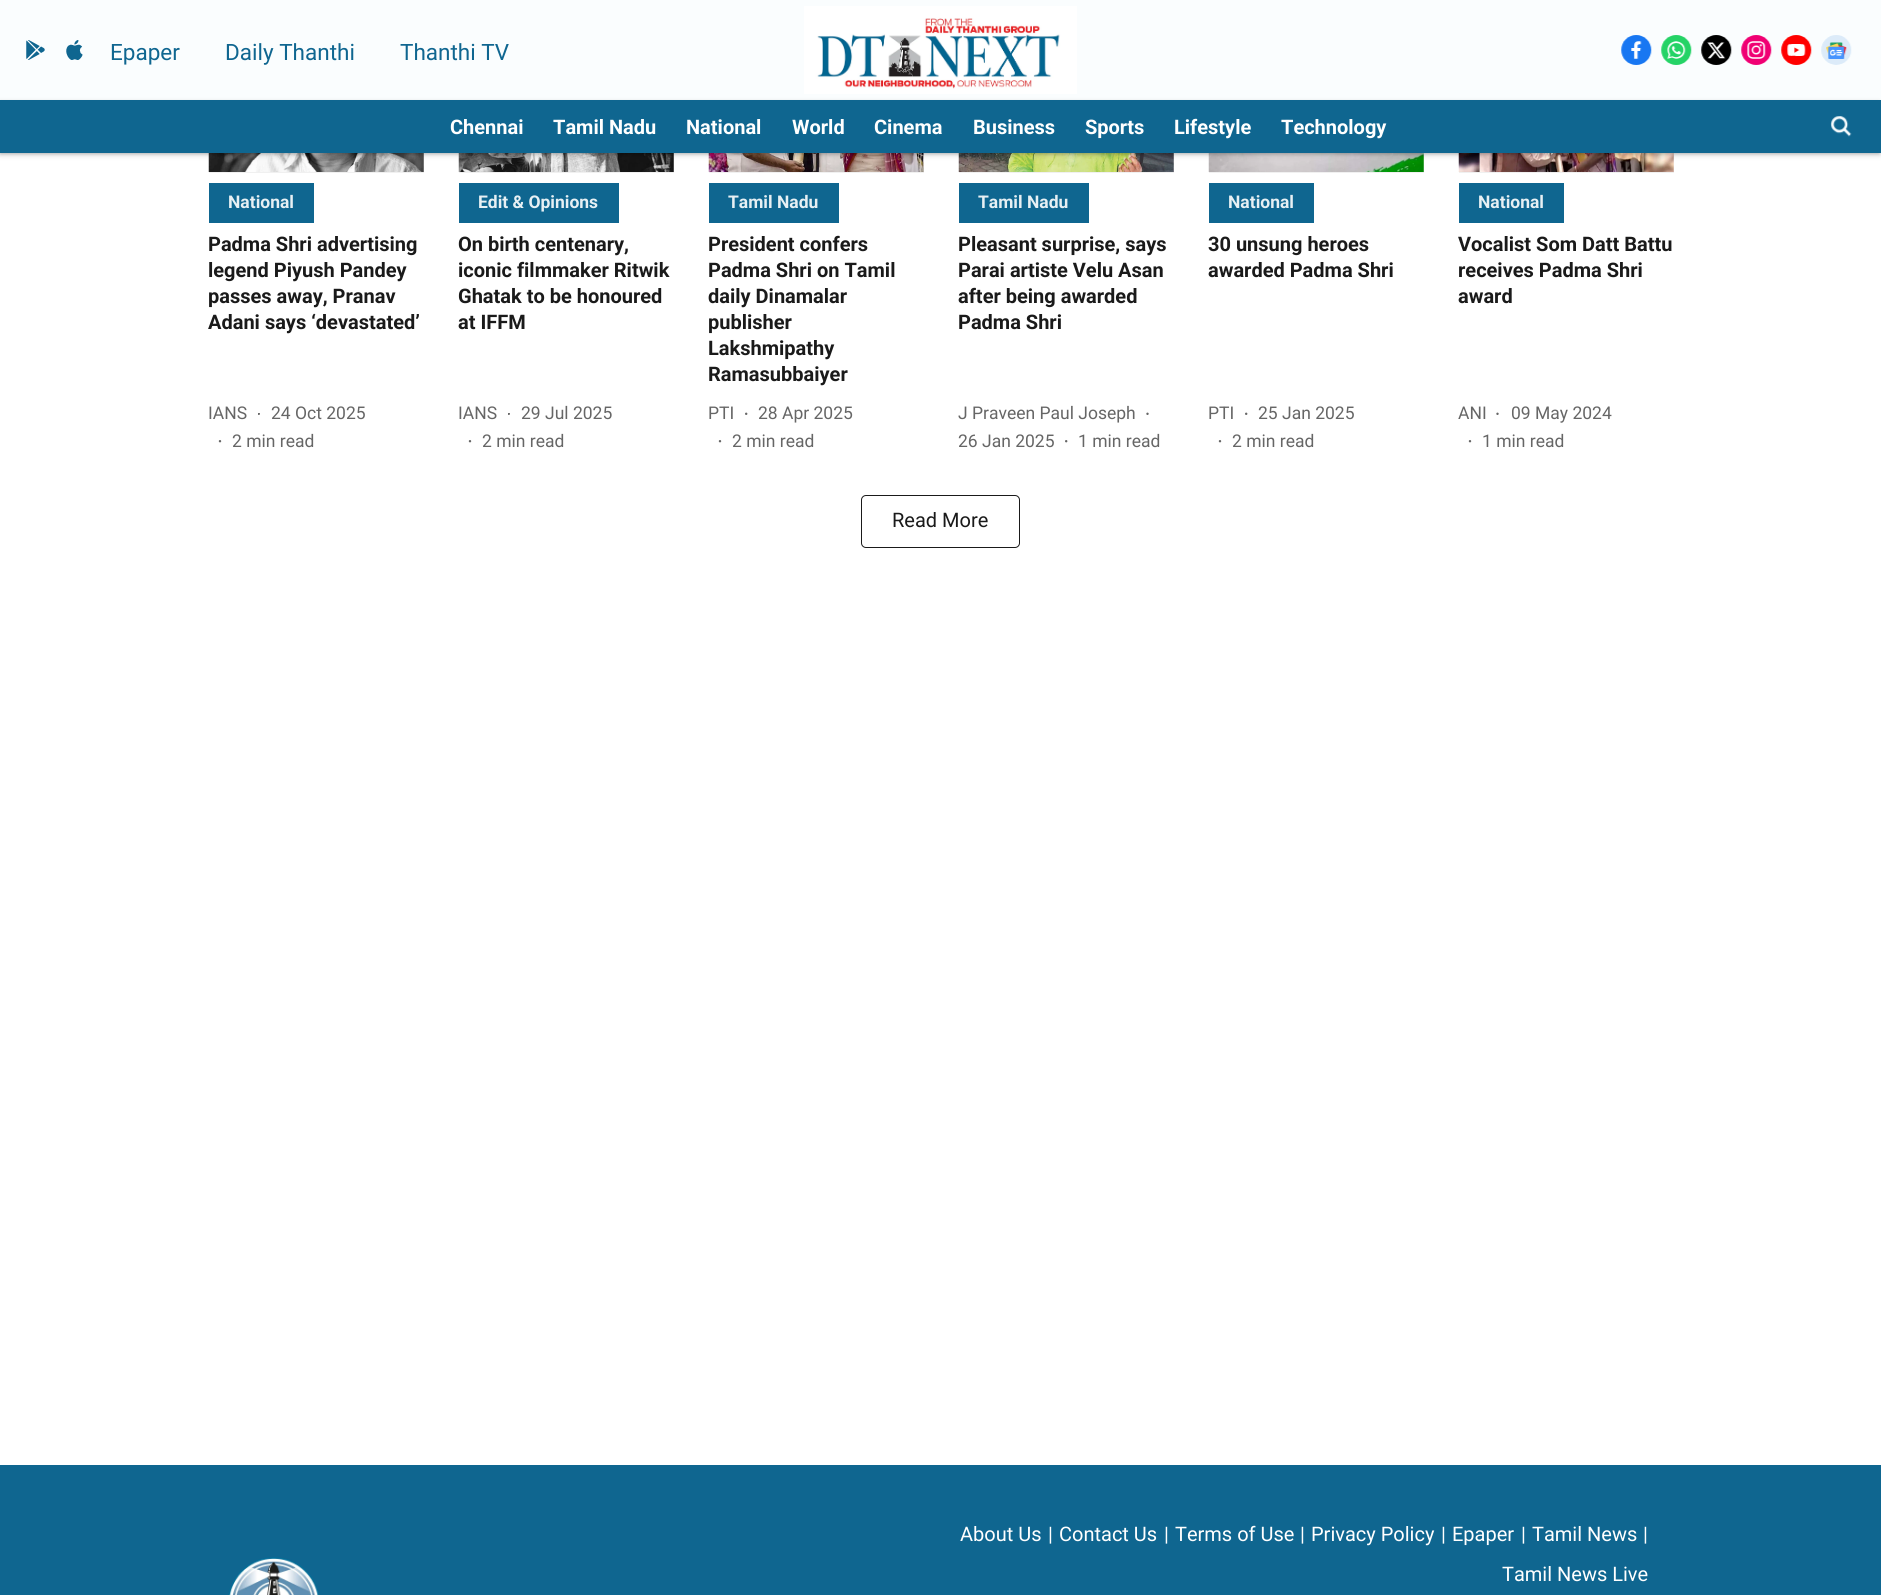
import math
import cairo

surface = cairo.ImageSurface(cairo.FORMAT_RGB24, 1881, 1595)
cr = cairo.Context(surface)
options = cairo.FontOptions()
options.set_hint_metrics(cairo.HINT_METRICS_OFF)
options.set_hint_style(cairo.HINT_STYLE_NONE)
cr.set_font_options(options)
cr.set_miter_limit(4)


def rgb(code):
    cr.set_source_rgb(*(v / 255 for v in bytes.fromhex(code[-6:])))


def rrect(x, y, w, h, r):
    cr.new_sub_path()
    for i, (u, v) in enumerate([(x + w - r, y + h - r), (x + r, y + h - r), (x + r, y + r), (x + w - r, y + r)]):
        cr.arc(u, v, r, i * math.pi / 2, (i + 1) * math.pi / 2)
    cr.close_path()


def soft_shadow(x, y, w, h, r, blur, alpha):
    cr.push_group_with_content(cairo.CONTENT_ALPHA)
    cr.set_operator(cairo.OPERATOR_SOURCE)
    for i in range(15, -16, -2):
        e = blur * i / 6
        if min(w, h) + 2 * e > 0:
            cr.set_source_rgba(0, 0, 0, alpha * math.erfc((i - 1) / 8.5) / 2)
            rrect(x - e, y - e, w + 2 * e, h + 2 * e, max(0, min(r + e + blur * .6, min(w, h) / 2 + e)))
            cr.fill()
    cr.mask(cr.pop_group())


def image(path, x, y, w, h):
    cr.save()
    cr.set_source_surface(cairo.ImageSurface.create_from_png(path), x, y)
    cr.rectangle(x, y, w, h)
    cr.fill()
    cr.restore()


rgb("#ffffff")
cr.paint()
rgb("#f0f0f0")
cr.rectangle(209, 153, 215, 20)
cr.fill()
image("img/11.png", 208, 153, 216, 19)
cr.rectangle(459, 153, 215, 20)
cr.fill()
image("img/12.png", 458, 153, 216, 19)
cr.rectangle(709, 153, 215, 20)
cr.fill()
image("img/13.png", 708, 153, 216, 19)
cr.rectangle(959, 153, 215, 20)
cr.fill()
image("img/14.png", 958, 153, 216, 19)
cr.rectangle(1209, 153, 215, 20)
cr.fill()
image("img/15.png", 1208, 153, 216, 19)
cr.rectangle(1459, 153, 215, 20)
cr.fill()
image("img/16.png", 1458, 153, 216, 19)
rgb("#000000")
soft_shadow(0, 1, 1881, 153, 0, 4, 0.1)
rgb("#fafdfe")
cr.rectangle(0, 0, 1881, 100)
cr.fill()
image("img/1.png", 26, 40, 19, 20)
image("img/2.png", 66, 40, 17, 20)
image("img/3.png", 804, 6, 273, 88)
image("img/4.png", 1621, 35, 31, 30)
image("img/5.png", 1661, 35, 31, 30)
image("img/6.png", 1701, 35, 31, 30)
image("img/7.png", 1741, 35, 31, 30)
image("img/8.png", 1781, 35, 31, 30)
image("img/9.png", 1821, 35, 31, 30)
rgb("#000000")
soft_shadow(0, 103, 1879, 50, 0, 2.5, 0.39)
rgb("#0f6690")
cr.rectangle(0, 100, 1881, 53)
cr.fill()
image("img/10.png", 1830, 116, 22, 21)
cr.rectangle(209, 183, 105, 40)
cr.fill()
cr.save()
cr.rectangle(258, 413, 4, 4)
cr.clip()
rgb("#666666")
cr.arc(258.8, 413.8, 1.2, 0, 2 * math.pi)
cr.fill()
cr.restore()
rgb("#666666")
cr.arc(220, 441.2, 1.2, 0, 2 * math.pi)
cr.fill()
rgb("#0f6690")
cr.rectangle(459, 183, 160, 40)
cr.fill()
cr.save()
cr.rectangle(508, 413, 4, 4)
cr.clip()
rgb("#666666")
cr.arc(508.8, 413.8, 1.2, 0, 2 * math.pi)
cr.fill()
cr.restore()
rgb("#666666")
cr.arc(470, 441.2, 1.2, 0, 2 * math.pi)
cr.fill()
rgb("#0f6690")
cr.rectangle(709, 183, 130, 40)
cr.fill()
rgb("#666666")
cr.arc(746.2, 413.8, 1.2, 0, 2 * math.pi)
cr.fill()
cr.arc(720, 441.2, 1.2, 0, 2 * math.pi)
cr.fill()
rgb("#0f6690")
cr.rectangle(959, 183, 130, 40)
cr.fill()
rgb("#666666")
cr.arc(1147.5, 413.8, 1.2, 0, 2 * math.pi)
cr.fill()
cr.arc(1066.2, 441.2, 1.2, 0, 2 * math.pi)
cr.fill()
rgb("#0f6690")
cr.rectangle(1209, 183, 105, 40)
cr.fill()
rgb("#666666")
cr.arc(1246.2, 413.8, 1.2, 0, 2 * math.pi)
cr.fill()
cr.arc(1220, 441.2, 1.2, 0, 2 * math.pi)
cr.fill()
rgb("#0f6690")
cr.rectangle(1459, 183, 105, 40)
cr.fill()
rgb("#666666")
cr.arc(1497.5, 413.8, 1.2, 0, 2 * math.pi)
cr.fill()
cr.arc(1470, 441.2, 1.2, 0, 2 * math.pi)
cr.fill()
rrect(861.5, 495.5, 158, 52, 4.5)
rgb("#1a1a1a")
cr.set_line_width(1)
cr.stroke()
rgb("#0f6690")
cr.rectangle(0, 1465, 1881, 130)
cr.fill()
image("img/17.png", 228, 1557, 91, 38)
cr.select_font_face("Roboto")
cr.set_font_size(22.5)
for x, y, s in [
    (110, 60, "Epaper"),
    (225, 60, "Daily Thanthi"),
    (400, 60, "Thanthi TV"),
]:
    cr.move_to(x, y)
    cr.show_text(s)
cr.select_font_face("Roboto", cairo.FONT_SLANT_NORMAL, cairo.FONT_WEIGHT_BOLD)
cr.set_font_size(20)
rgb("#ffffff")
for x, y, s in [
    (450, 134, "Chennai"),
    (553, 134, "Tamil Nadu"),
    (686, 134, "National"),
    (792, 134, "World"),
    (874, 134, "Cinema"),
    (973, 134, "Business"),
    (1085, 134, "Sports"),
    (1174, 134, "Lifestyle"),
    (1281, 134, "Technology"),
]:
    cr.move_to(x, y)
    cr.show_text(s)
cr.set_font_size(17.5)
rgb("#e7f0f4")
cr.move_to(228, 208)
cr.show_text("National")
cr.set_font_size(20)
rgb("#1a1a1a")
for x, y, s in [
    (208, 251, "Padma Shri advertising"),
    (208, 277, "legend Piyush Pandey"),
    (208, 303, "passes away, Pranav"),
    (208, 329, "Adani says ‘devastated’"),
]:
    cr.move_to(x, y)
    cr.show_text(s)
cr.select_font_face("Roboto")
cr.set_font_size(17.5)
rgb("#666666")
for x, y, s in [
    (208, 419, "IANS"),
    (271, 419, "24 Oct 2025"),
    (232, 447, "2 min read"),
]:
    cr.move_to(x, y)
    cr.show_text(s)
cr.select_font_face("Roboto", cairo.FONT_SLANT_NORMAL, cairo.FONT_WEIGHT_BOLD)
rgb("#e7f0f4")
cr.move_to(478, 208)
cr.show_text("Edit & Opinions")
cr.set_font_size(20)
rgb("#1a1a1a")
for x, y, s in [
    (458, 251, "On birth centenary,"),
    (458, 277, "iconic filmmaker Ritwik"),
    (458, 303, "Ghatak to be honoured"),
    (458, 329, "at IFFM"),
]:
    cr.move_to(x, y)
    cr.show_text(s)
cr.select_font_face("Roboto")
cr.set_font_size(17.5)
rgb("#666666")
for x, y, s in [
    (458, 419, "IANS"),
    (521, 419, "29 Jul 2025"),
    (482, 447, "2 min read"),
]:
    cr.move_to(x, y)
    cr.show_text(s)
cr.select_font_face("Roboto", cairo.FONT_SLANT_NORMAL, cairo.FONT_WEIGHT_BOLD)
rgb("#e7f0f4")
cr.move_to(728, 208)
cr.show_text("Tamil Nadu")
cr.set_font_size(20)
rgb("#1a1a1a")
for x, y, s in [
    (708, 251, "President confers"),
    (708, 277, "Padma Shri on Tamil"),
    (708, 303, "daily Dinamalar"),
    (708, 329, "publisher"),
    (708, 355, "Lakshmipathy"),
    (708, 381, "Ramasubbaiyer"),
]:
    cr.move_to(x, y)
    cr.show_text(s)
cr.select_font_face("Roboto")
cr.set_font_size(17.5)
rgb("#666666")
for x, y, s in [
    (708, 419, "PTI"),
    (758, 419, "28 Apr 2025"),
    (732, 447, "2 min read"),
]:
    cr.move_to(x, y)
    cr.show_text(s)
cr.select_font_face("Roboto", cairo.FONT_SLANT_NORMAL, cairo.FONT_WEIGHT_BOLD)
rgb("#e7f0f4")
cr.move_to(978, 208)
cr.show_text("Tamil Nadu")
cr.set_font_size(20)
rgb("#1a1a1a")
for x, y, s in [
    (958, 251, "Pleasant surprise, says"),
    (958, 277, "Parai artiste Velu Asan"),
    (958, 303, "after being awarded"),
    (958, 329, "Padma Shri"),
]:
    cr.move_to(x, y)
    cr.show_text(s)
cr.select_font_face("Roboto")
cr.set_font_size(17.5)
rgb("#666666")
for x, y, s in [
    (958, 419, "J Praveen Paul Joseph"),
    (958, 447, "26 Jan 2025"),
    (1078, 447, "1 min read"),
]:
    cr.move_to(x, y)
    cr.show_text(s)
cr.select_font_face("Roboto", cairo.FONT_SLANT_NORMAL, cairo.FONT_WEIGHT_BOLD)
rgb("#e7f0f4")
cr.move_to(1228, 208)
cr.show_text("National")
cr.set_font_size(20)
rgb("#1a1a1a")
cr.move_to(1208, 251)
cr.show_text("30 unsung heroes")
cr.move_to(1208, 277)
cr.show_text("awarded Padma Shri")
cr.select_font_face("Roboto")
cr.set_font_size(17.5)
rgb("#666666")
for x, y, s in [
    (1208, 419, "PTI"),
    (1258, 419, "25 Jan 2025"),
    (1232, 447, "2 min read"),
]:
    cr.move_to(x, y)
    cr.show_text(s)
cr.select_font_face("Roboto", cairo.FONT_SLANT_NORMAL, cairo.FONT_WEIGHT_BOLD)
rgb("#e7f0f4")
cr.move_to(1478, 208)
cr.show_text("National")
cr.set_font_size(20)
rgb("#1a1a1a")
for x, y, s in [
    (1458, 251, "Vocalist Som Datt Battu"),
    (1458, 277, "receives Padma Shri"),
    (1458, 303, "award"),
]:
    cr.move_to(x, y)
    cr.show_text(s)
cr.select_font_face("Roboto")
cr.set_font_size(17.5)
rgb("#666666")
for x, y, s in [
    (1458, 419, "ANI"),
    (1511, 419, "09 May 2024"),
    (1482, 447, "1 min read"),
]:
    cr.move_to(x, y)
    cr.show_text(s)
cr.set_font_size(20)
rgb("#1a1a1a")
cr.move_to(892, 527)
cr.show_text("Read More")
rgb("#ffffff")
for x, y, s in [
    (960, 1541, "About Us"),
    (1048, 1541, "|"),
    (1059, 1541, "Contact Us"),
    (1164, 1541, "|"),
    (1175, 1541, "Terms of Use"),
    (1300, 1541, "|"),
    (1311, 1541, "Privacy Policy"),
    (1441, 1541, "|"),
    (1452, 1541, "Epaper"),
    (1521, 1541, "|"),
    (1532, 1541, "Tamil News"),
    (1643, 1541, "|"),
    (1502, 1581, "Tamil News Live"),
]:
    cr.move_to(x, y)
    cr.show_text(s)
surface.write_to_png("page.png")
